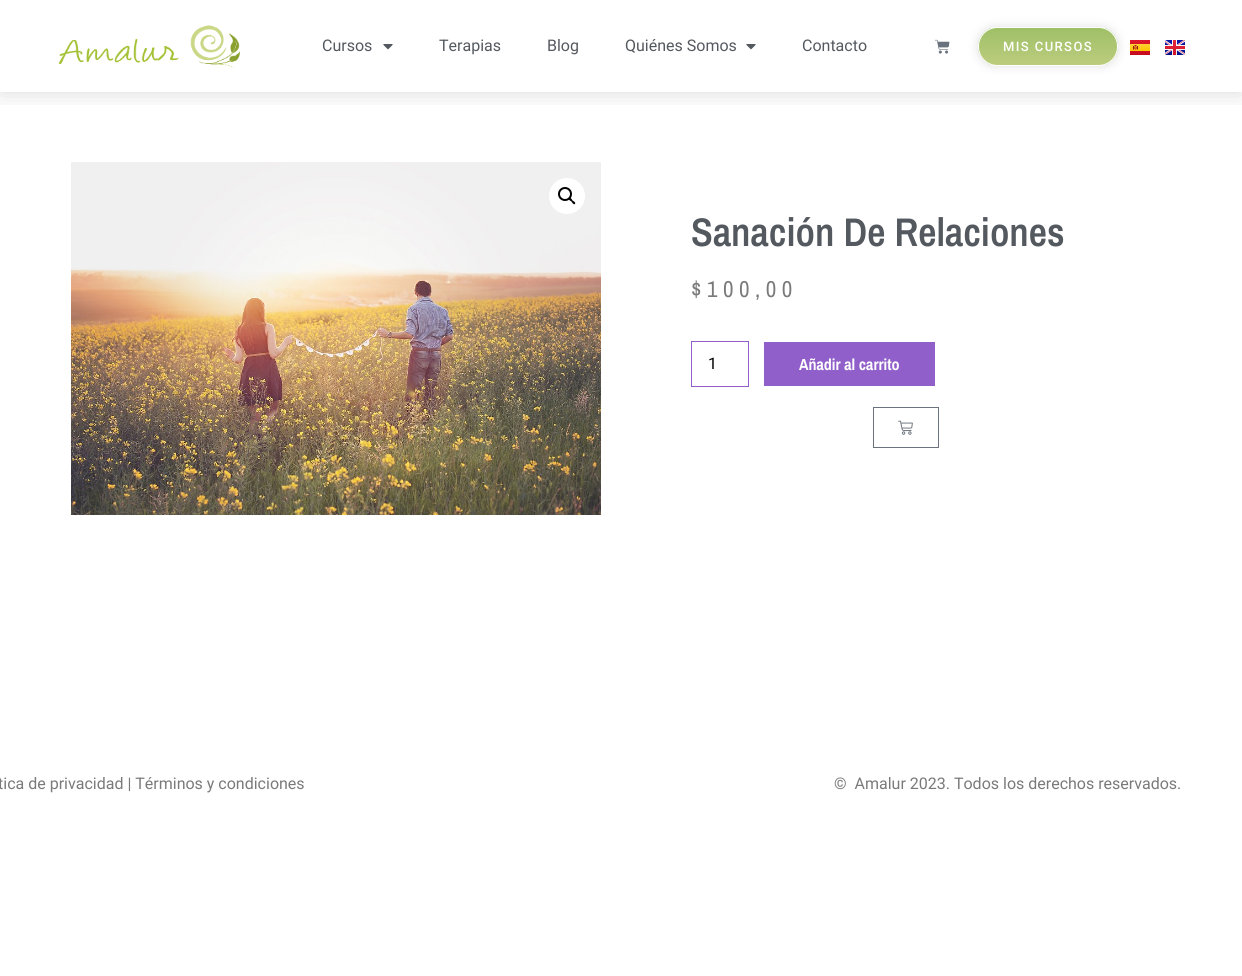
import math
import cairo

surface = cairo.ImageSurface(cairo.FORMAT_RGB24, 1242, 976)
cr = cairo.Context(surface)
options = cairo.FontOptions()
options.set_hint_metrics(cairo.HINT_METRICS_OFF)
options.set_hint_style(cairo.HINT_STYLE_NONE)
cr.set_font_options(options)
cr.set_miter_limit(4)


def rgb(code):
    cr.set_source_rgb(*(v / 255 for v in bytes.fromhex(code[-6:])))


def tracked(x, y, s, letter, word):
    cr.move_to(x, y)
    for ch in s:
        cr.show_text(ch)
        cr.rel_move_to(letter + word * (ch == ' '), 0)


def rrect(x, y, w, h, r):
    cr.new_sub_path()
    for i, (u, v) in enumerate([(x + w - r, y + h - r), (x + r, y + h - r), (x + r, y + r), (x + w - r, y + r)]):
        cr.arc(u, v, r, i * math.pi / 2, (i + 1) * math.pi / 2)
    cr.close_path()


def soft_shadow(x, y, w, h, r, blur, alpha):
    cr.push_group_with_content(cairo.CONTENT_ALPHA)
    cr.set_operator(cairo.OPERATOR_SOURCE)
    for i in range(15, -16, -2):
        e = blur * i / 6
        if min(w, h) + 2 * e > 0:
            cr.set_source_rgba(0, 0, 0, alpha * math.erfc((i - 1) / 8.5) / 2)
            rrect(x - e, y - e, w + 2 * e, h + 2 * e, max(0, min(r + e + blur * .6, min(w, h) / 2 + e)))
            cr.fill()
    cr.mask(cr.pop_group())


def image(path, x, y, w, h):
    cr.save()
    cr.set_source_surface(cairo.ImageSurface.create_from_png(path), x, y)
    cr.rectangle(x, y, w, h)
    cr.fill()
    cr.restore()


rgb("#ffffff")
cr.paint()
cr.save()
cr.rectangle(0, 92, 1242, 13)
cr.clip()
rgb("#000000")
soft_shadow(0, 0, 1242, 92, 0, 12, 0.15)
cr.restore()
image("img/1.png", 58, 25, 182, 43)
image("img/2.png", 383, 44, 10, 6)
image("img/2.png", 746, 44, 10, 6)
image("img/3.png", 935, 39, 15, 15)
rgb("#000000")
soft_shadow(978, 27, 140, 39, 19.5, 5.5, 0.12)
cr.save()
rrect(978, 27, 140, 39, 19.5)
cr.clip()
gradient = cairo.LinearGradient(1048, 28, 1048, 65)
gradient.add_color_stop_rgba(0, 0.624, 0.753, 0.404, 1)
gradient.add_color_stop_rgba(1, 0.737, 0.8, 0.494, 1)
cr.set_source(gradient)
cr.rectangle(978, 28, 140, 37)
cr.fill()
cr.restore()
rrect(978.5, 27.5, 139, 38, 19)
rgb("#ffffff")
cr.set_line_width(1)
cr.stroke()
image("img/4.png", 1130, 40, 20, 15)
image("img/5.png", 1165, 40, 20, 15)
image("img/6.png", 71, 162, 530, 353)
cr.arc(567, 196, 18, 0, 2 * math.pi)
cr.fill()
cr.arc(565, 194, 6, 0, 2 * math.pi)
rgb("#000000")
cr.set_line_width(2)
cr.stroke()
cr.new_path()
cr.move_to(569, 198)
cr.curve_to(570.5, 197, 572, 199.5, 572.5, 200.5)
cr.curve_to(573.5, 201, 576, 202.5, 575, 204)
cr.curve_to(573.5, 205, 572, 202.5, 571.5, 201.5)
cr.curve_to(570.5, 201, 568, 199.5, 569, 198)
cr.close_path()
cr.fill()
cr.rectangle(691.5, 341.5, 57, 45)
rgb("#915fca")
cr.set_line_width(1)
cr.stroke()
cr.rectangle(764, 342, 171, 44)
cr.fill()
cr.rectangle(873.5, 407.5, 65, 40)
rgb("#69727d")
cr.stroke()
image("img/7.png", 898, 420, 15, 15)
cr.select_font_face("Roboto")
cr.set_font_size(16)
rgb("#54595f")
for x, y, s in [
    (322, 51, "Cursos"),
    (439, 51, "Terapias"),
    (547, 51, "Blog"),
    (625, 51, "Quiénes Somos"),
    (802, 51, "Contacto"),
]:
    cr.move_to(x, y)
    cr.show_text(s)
cr.select_font_face("Roboto Medium")
cr.set_font_size(13)
rgb("#ffffff")
tracked(1003, 51, "MIS CURSOS", 1.4, 0)
cr.select_font_face("Archivo Narrow SemiBold")
cr.set_font_size(40)
rgb("#54595f")
cr.move_to(691, 246)
cr.show_text("Sanación De Relaciones")
cr.select_font_face("Archivo Narrow")
cr.set_font_size(23)
rgb("#7a7a7a")
tracked(691, 297, "$100,00", 5.5, 0)
cr.select_font_face("Roboto")
cr.set_font_size(16)
rgb("#000000")
cr.move_to(708, 369)
cr.show_text("1")
cr.select_font_face("Archivo Narrow", cairo.FONT_SLANT_NORMAL, cairo.FONT_WEIGHT_BOLD)
rgb("#ffffff")
cr.move_to(799, 370)
cr.show_text("Añadir al carrito")
cr.select_font_face("Roboto")
rgb("#7a7a7a")
cr.move_to(-2, 789)
cr.show_text("tica de privacidad | Términos y condiciones")
cr.move_to(834, 789)
cr.show_text("©  Amalur 2023. Todos los derechos reservados.")
surface.write_to_png("page.png")
